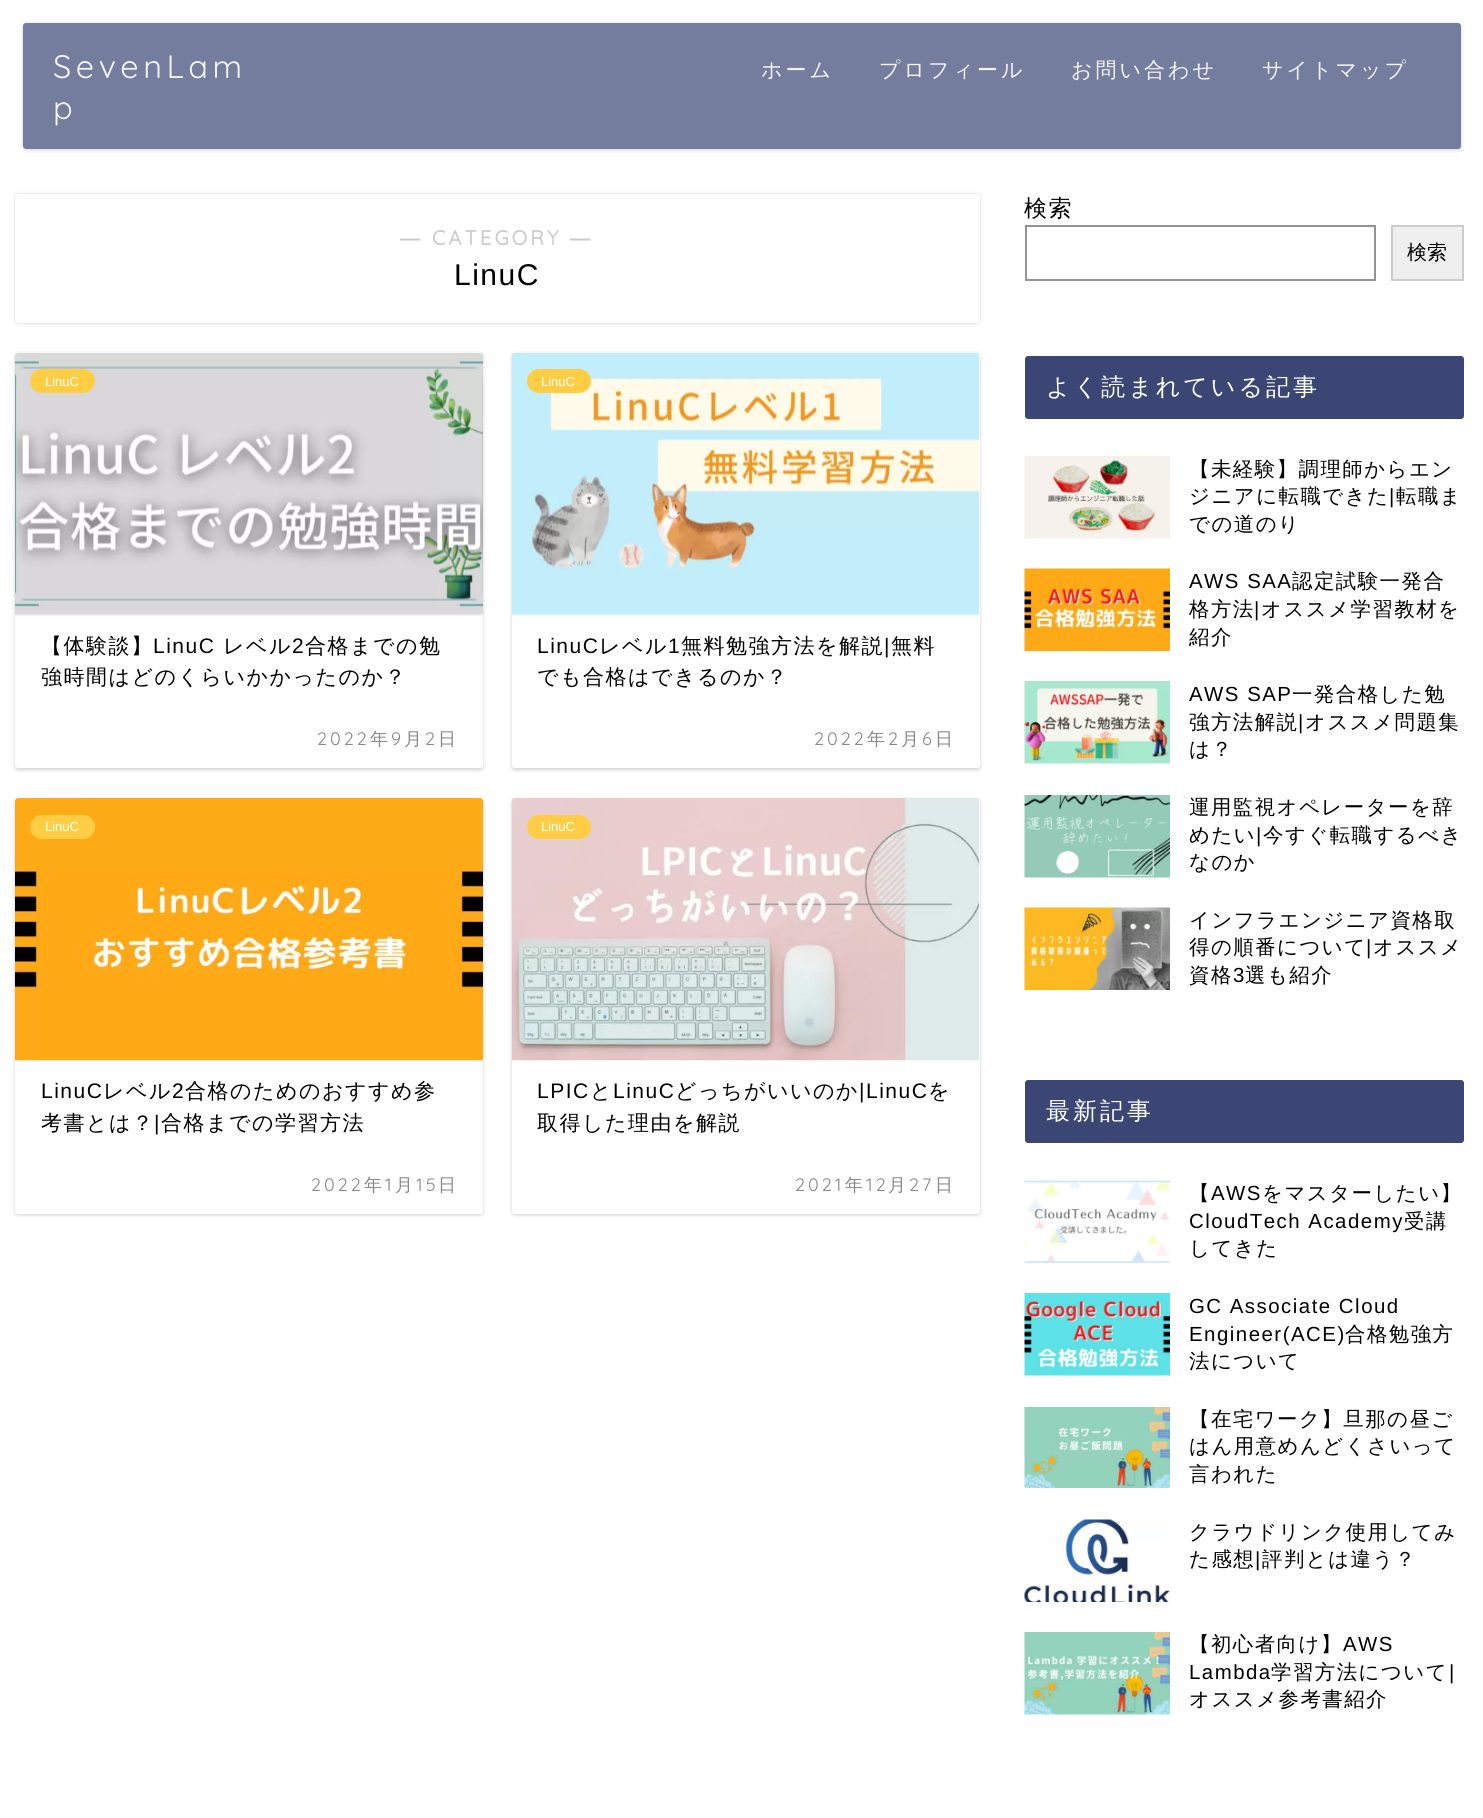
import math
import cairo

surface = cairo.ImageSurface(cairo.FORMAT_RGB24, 1483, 1818)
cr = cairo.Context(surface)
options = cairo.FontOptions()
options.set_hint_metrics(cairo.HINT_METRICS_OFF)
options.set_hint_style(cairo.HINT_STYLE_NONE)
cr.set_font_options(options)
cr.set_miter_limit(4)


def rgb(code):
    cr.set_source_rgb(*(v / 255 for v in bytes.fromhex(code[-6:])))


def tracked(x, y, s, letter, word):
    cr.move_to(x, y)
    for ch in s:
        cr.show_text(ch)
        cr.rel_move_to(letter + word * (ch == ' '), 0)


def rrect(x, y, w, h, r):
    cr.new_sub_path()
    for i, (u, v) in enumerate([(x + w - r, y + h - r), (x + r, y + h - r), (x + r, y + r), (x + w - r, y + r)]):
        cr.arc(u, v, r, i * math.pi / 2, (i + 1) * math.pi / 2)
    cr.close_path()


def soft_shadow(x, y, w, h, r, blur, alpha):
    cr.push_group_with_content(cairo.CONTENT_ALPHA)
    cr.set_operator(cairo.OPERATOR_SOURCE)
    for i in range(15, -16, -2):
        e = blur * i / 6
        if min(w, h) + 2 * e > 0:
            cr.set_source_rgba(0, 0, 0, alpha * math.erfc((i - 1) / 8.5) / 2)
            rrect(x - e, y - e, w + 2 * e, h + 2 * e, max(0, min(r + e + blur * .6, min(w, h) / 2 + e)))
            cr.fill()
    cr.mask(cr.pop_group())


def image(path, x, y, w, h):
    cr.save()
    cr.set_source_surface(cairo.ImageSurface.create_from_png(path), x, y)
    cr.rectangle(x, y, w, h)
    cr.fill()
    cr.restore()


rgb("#ffffff")
cr.paint()
cr.save()
cr.set_fill_rule(cairo.FILL_RULE_EVEN_ODD)
cr.new_path()
cr.move_to(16, 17)
cr.line_to(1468, 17)
cr.line_to(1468, 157)
cr.line_to(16, 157)
cr.close_path()
cr.move_to(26, 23)
cr.line_to(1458, 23)
cr.curve_to(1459.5, 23, 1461, 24.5, 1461, 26)
cr.line_to(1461, 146)
cr.curve_to(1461, 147.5, 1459.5, 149, 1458, 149)
cr.line_to(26, 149)
cr.curve_to(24.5, 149, 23, 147.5, 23, 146)
cr.line_to(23, 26)
cr.curve_to(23, 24.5, 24.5, 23, 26, 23)
cr.close_path()
cr.clip()
rgb("#000000")
soft_shadow(23, 24, 1438, 126, 3, 2, 0.18)
cr.restore()
cr.set_source_rgba(0.231, 0.275, 0.459, 0.7)
rrect(23, 23, 1438, 126, 3)
cr.fill()
rgb("#000000")
soft_shadow(15, 194, 965, 129, 3, 1.5, 0.18)
rgb("#ffffff")
rrect(15, 194, 965, 129, 3)
cr.fill()
rgb("#000000")
soft_shadow(15, 354, 468, 416, 3, 2, 0.18)
rgb("#ffffff")
rrect(15, 353, 468, 415, 3)
cr.fill()
image("img/1.png", 15, 353, 468, 263)
rgb("#ffcd44")
rrect(30, 369, 65, 24, 12)
cr.fill()
rgb("#000000")
soft_shadow(512, 354, 468, 416, 3, 2, 0.18)
rgb("#ffffff")
rrect(512, 353, 468, 415, 3)
cr.fill()
image("img/2.png", 511, 353, 469, 263)
rgb("#ffcd44")
rrect(527, 369, 64, 24, 12)
cr.fill()
rgb("#000000")
soft_shadow(15, 800, 468, 415, 3, 2, 0.18)
rgb("#ffffff")
rrect(15, 798, 468, 416, 3)
cr.fill()
image("img/3.png", 15, 798, 468, 263)
rgb("#ffcd44")
rrect(30, 815, 65, 24, 12)
cr.fill()
rgb("#000000")
soft_shadow(512, 800, 468, 415, 3, 2, 0.18)
rgb("#ffffff")
rrect(512, 798, 468, 416, 3)
cr.fill()
image("img/4.png", 511, 798, 469, 263)
rgb("#ffcd44")
rrect(527, 815, 64, 24, 12)
cr.fill()
cr.rectangle(1026, 226, 349, 54)
rgb("#949494")
cr.stroke()
rgb("#efefef")
cr.rectangle(1392, 226, 71, 54)
cr.fill_preserve()
rgb("#cccccc")
cr.stroke()
rgb("#3b4675")
rrect(1025, 356, 439, 63, 3)
cr.fill()
image("img/5.png", 1024, 456, 146, 83)
image("img/6.png", 1024, 568, 146, 83)
image("img/7.png", 1024, 681, 146, 83)
image("img/8.png", 1024, 795, 146, 83)
image("img/9.png", 1024, 907, 146, 83)
rrect(1025, 1080, 439, 63, 3)
cr.fill()
image("img/10.png", 1024, 1180, 146, 83)
image("img/11.png", 1024, 1293, 146, 83)
image("img/12.png", 1024, 1407, 146, 81)
image("img/13.png", 1024, 1519, 146, 83)
image("img/14.png", 1024, 1632, 146, 83)
cr.select_font_face("Quicksand Light")
cr.set_font_size(32.5)
rgb("#f4f4f4")
tracked(53, 78, "SevenLam", 4.5, 0)
tracked(53, 119, "p", 4.5, 0)
cr.select_font_face("WenQuanYi Zen Hei Medium")
cr.set_font_size(21)
for x, y, s in [
    (761, 77, "ホーム"),
    (879, 77, "プロフィール"),
    (1071, 77, "お問い合わせ"),
    (1262, 77, "サイトマップ"),
]:
    tracked(x, y, s, 3, 0)
cr.select_font_face("Liberation Sans", cairo.FONT_SLANT_NORMAL, cairo.FONT_WEIGHT_BOLD)
cr.set_font_size(20.4)
rgb("#cccccc")
tracked(400, 245, "―", 3, 0)
cr.select_font_face("Quicksand", cairo.FONT_SLANT_NORMAL, cairo.FONT_WEIGHT_BOLD)
tracked(432, 245, "CATEGORY", 3, 0)
cr.select_font_face("Liberation Sans", cairo.FONT_SLANT_NORMAL, cairo.FONT_WEIGHT_BOLD)
tracked(570, 245, "―", 3, 0)
cr.select_font_face("Liberation Sans")
cr.set_font_size(30)
rgb("#000000")
tracked(454, 285, "LinuC", 1.5, 0)
cr.set_font_size(13)
rgb("#ffffff")
cr.move_to(45, 386)
cr.show_text("LinuC")
cr.select_font_face("WenQuanYi Zen Hei Medium")
cr.set_font_size(21)
rgb("#000000")
tracked(41, 653, "【体験談】", 1.5, 0)
cr.select_font_face("Liberation Sans")
tracked(153, 653, "LinuC", 1.5, 0)
cr.select_font_face("WenQuanYi Zen Hei Medium")
tracked(223, 653, "レベル", 1.5, 0)
cr.select_font_face("Liberation Sans")
tracked(292, 653, "2", 1.5, 0)
cr.select_font_face("WenQuanYi Zen Hei Medium")
tracked(305, 653, "合格までの勉", 1.5, 0)
tracked(41, 684, "強時間はどのくらいかかったのか？", 1.5, 0)
cr.select_font_face("Quicksand Light")
cr.set_font_size(18)
rgb("#888888")
tracked(317, 745, "2022", 3, 0)
cr.select_font_face("WenQuanYi Zen Hei Medium")
tracked(370, 745, "年", 3, 0)
cr.select_font_face("Quicksand Light")
tracked(391, 745, "9", 3, 0)
cr.select_font_face("WenQuanYi Zen Hei Medium")
tracked(404, 745, "月", 3, 0)
cr.select_font_face("Quicksand Light")
tracked(425, 745, "2", 3, 0)
cr.select_font_face("WenQuanYi Zen Hei Medium")
tracked(438, 745, "日", 3, 0)
cr.select_font_face("Liberation Sans")
cr.set_font_size(13)
rgb("#ffffff")
cr.move_to(541, 386)
cr.show_text("LinuC")
cr.set_font_size(21)
rgb("#000000")
tracked(537, 653, "LinuC", 1.5, 0)
cr.select_font_face("WenQuanYi Zen Hei Medium")
tracked(599, 653, "レベル", 1.5, 0)
cr.select_font_face("Liberation Sans")
tracked(668, 653, "1", 1.5, 0)
cr.select_font_face("WenQuanYi Zen Hei Medium")
tracked(681, 653, "無料勉強方法を解説", 1.5, 0)
cr.select_font_face("Liberation Sans")
tracked(884, 653, "|", 1.5, 0)
cr.select_font_face("WenQuanYi Zen Hei Medium")
tracked(891, 653, "無料", 1.5, 0)
tracked(537, 684, "でも合格はできるのか？", 1.5, 0)
cr.select_font_face("Quicksand Light")
cr.set_font_size(18)
rgb("#888888")
tracked(814, 745, "2022", 3, 0)
cr.select_font_face("WenQuanYi Zen Hei Medium")
tracked(867, 745, "年", 3, 0)
cr.select_font_face("Quicksand Light")
tracked(888, 745, "2", 3, 0)
cr.select_font_face("WenQuanYi Zen Hei Medium")
tracked(901, 745, "月", 3, 0)
cr.select_font_face("Quicksand Light")
tracked(922, 745, "6", 3, 0)
cr.select_font_face("WenQuanYi Zen Hei Medium")
tracked(935, 745, "日", 3, 0)
cr.select_font_face("Liberation Sans")
cr.set_font_size(13)
rgb("#ffffff")
cr.move_to(45, 831)
cr.show_text("LinuC")
cr.set_font_size(21)
rgb("#000000")
tracked(41, 1098, "LinuC", 1.5, 0)
cr.select_font_face("WenQuanYi Zen Hei Medium")
tracked(103, 1098, "レベル", 1.5, 0)
cr.select_font_face("Liberation Sans")
tracked(172, 1098, "2", 1.5, 0)
cr.select_font_face("WenQuanYi Zen Hei Medium")
tracked(185, 1098, "合格のためのおすすめ参", 1.5, 0)
tracked(41, 1130, "考書とは？", 1.5, 0)
cr.select_font_face("Liberation Sans")
tracked(154, 1130, "|", 1.5, 0)
cr.select_font_face("WenQuanYi Zen Hei Medium")
tracked(161, 1130, "合格までの学習方法", 1.5, 0)
cr.select_font_face("Quicksand Light")
cr.set_font_size(18)
rgb("#888888")
tracked(311, 1191, "2022", 3, 0)
cr.select_font_face("WenQuanYi Zen Hei Medium")
tracked(364, 1191, "年", 3, 0)
cr.select_font_face("Quicksand Light")
tracked(385, 1191, "1", 3, 0)
cr.select_font_face("WenQuanYi Zen Hei Medium")
tracked(395, 1191, "月", 3, 0)
cr.select_font_face("Quicksand Light")
tracked(416, 1191, "15", 3, 0)
cr.select_font_face("WenQuanYi Zen Hei Medium")
tracked(438, 1191, "日", 3, 0)
cr.select_font_face("Liberation Sans")
cr.set_font_size(13)
rgb("#ffffff")
cr.move_to(541, 831)
cr.show_text("LinuC")
cr.set_font_size(21)
rgb("#000000")
tracked(537, 1098, "LPIC", 1.5, 0)
cr.select_font_face("WenQuanYi Zen Hei Medium")
tracked(590, 1098, "と", 1.5, 0)
cr.select_font_face("Liberation Sans")
tracked(613, 1098, "LinuC", 1.5, 0)
cr.select_font_face("WenQuanYi Zen Hei Medium")
tracked(675, 1098, "どっちがいいのか", 1.5, 0)
cr.select_font_face("Liberation Sans")
tracked(859, 1098, "|LinuC", 1.5, 0)
cr.select_font_face("WenQuanYi Zen Hei Medium")
tracked(928, 1098, "を", 1.5, 0)
tracked(537, 1130, "取得した理由を解説", 1.5, 0)
cr.select_font_face("Quicksand Light")
cr.set_font_size(18)
rgb("#888888")
tracked(795, 1191, "2021", 3, 0)
cr.select_font_face("WenQuanYi Zen Hei Medium")
tracked(845, 1191, "年", 3, 0)
cr.select_font_face("Quicksand Light")
tracked(866, 1191, "12", 3, 0)
cr.select_font_face("WenQuanYi Zen Hei Medium")
tracked(888, 1191, "月", 3, 0)
cr.select_font_face("Quicksand Light")
tracked(909, 1191, "27", 3, 0)
cr.select_font_face("WenQuanYi Zen Hei Medium")
tracked(935, 1191, "日", 3, 0)
cr.set_font_size(23)
rgb("#000000")
tracked(1024, 216, "検索", 1.5, 0)
cr.set_font_size(20)
cr.move_to(1407, 259)
cr.show_text("検索")
cr.set_font_size(24)
rgb("#ffffff")
tracked(1046, 395, "よく読まれている記事", 3, 0)
cr.set_font_size(20.4)
rgb("#000000")
tracked(1189, 476, "【未経験】調理師からエン", 1.5, 0)
tracked(1189, 503, "ジニアに転職できた", 1.5, 0)
cr.select_font_face("Liberation Sans")
tracked(1389, 503, "|", 1.5, 0)
cr.select_font_face("WenQuanYi Zen Hei Medium")
tracked(1396, 503, "転職ま", 1.5, 0)
tracked(1189, 531, "での道のり", 1.5, 0)
cr.select_font_face("Liberation Sans")
tracked(1189, 588, "AWS SAA", 1.5, 0)
cr.select_font_face("WenQuanYi Zen Hei Medium")
tracked(1292, 588, "認定試験一発合", 1.5, 0)
tracked(1189, 616, "格方法", 1.5, 0)
cr.select_font_face("Liberation Sans")
tracked(1254, 616, "|", 1.5, 0)
cr.select_font_face("WenQuanYi Zen Hei Medium")
tracked(1261, 616, "オススメ学習教材を", 1.5, 0)
tracked(1189, 644, "紹介", 1.5, 0)
cr.select_font_face("Liberation Sans")
tracked(1189, 701, "AWS SAP", 1.5, 0)
cr.select_font_face("WenQuanYi Zen Hei Medium")
tracked(1292, 701, "一発合格した勉", 1.5, 0)
tracked(1189, 729, "強方法解説", 1.5, 0)
cr.select_font_face("Liberation Sans")
tracked(1298, 729, "|", 1.5, 0)
cr.select_font_face("WenQuanYi Zen Hei Medium")
for x, y, s in [
    (1305, 729, "オススメ問題集"),
    (1189, 756, "は？"),
    (1189, 814, "運用監視オペレーターを辞"),
    (1189, 842, "めたい"),
]:
    tracked(x, y, s, 1.5, 0)
cr.select_font_face("Liberation Sans")
tracked(1256, 842, "|", 1.5, 0)
cr.select_font_face("WenQuanYi Zen Hei Medium")
for x, y, s in [
    (1263, 842, "今すぐ転職するべき"),
    (1189, 869, "なのか"),
    (1189, 927, "インフラエンジニア資格取"),
    (1189, 954, "得の順番について"),
]:
    tracked(x, y, s, 1.5, 0)
cr.select_font_face("Liberation Sans")
tracked(1366, 954, "|", 1.5, 0)
cr.select_font_face("WenQuanYi Zen Hei Medium")
tracked(1373, 954, "オススメ", 1.5, 0)
tracked(1189, 982, "資格", 1.5, 0)
cr.select_font_face("Liberation Sans")
tracked(1233, 982, "3", 1.5, 0)
cr.select_font_face("WenQuanYi Zen Hei Medium")
tracked(1245, 982, "選も紹介", 1.5, 0)
cr.set_font_size(24)
rgb("#ffffff")
tracked(1046, 1119, "最新記事", 3, 0)
cr.set_font_size(20.4)
rgb("#000000")
tracked(1189, 1200, "【", 1.5, 0)
cr.select_font_face("Liberation Sans")
tracked(1211, 1200, "AWS", 1.5, 0)
cr.select_font_face("WenQuanYi Zen Hei Medium")
tracked(1262, 1200, "をマスターしたい】", 1.5, 0)
cr.select_font_face("Liberation Sans")
tracked(1189, 1228, "CloudTech Academy", 1.5, 0)
cr.select_font_face("WenQuanYi Zen Hei Medium")
tracked(1404, 1228, "受講", 1.5, 0)
tracked(1189, 1255, "してきた", 1.5, 0)
cr.select_font_face("Liberation Sans")
tracked(1189, 1313, "GC Associate Cloud", 1.5, 0)
tracked(1189, 1341, "Engineer(ACE)", 1.5, 0)
cr.select_font_face("WenQuanYi Zen Hei Medium")
for x, y, s in [
    (1345, 1341, "合格勉強方"),
    (1189, 1368, "法について"),
    (1189, 1426, "【在宅ワーク】旦那の昼ご"),
    (1189, 1453, "はん用意めんどくさいって"),
    (1189, 1481, "言われた"),
    (1189, 1539, "クラウドリンク使用してみ"),
    (1189, 1566, "た感想"),
]:
    tracked(x, y, s, 1.5, 0)
cr.select_font_face("Liberation Sans")
tracked(1255, 1566, "|", 1.5, 0)
cr.select_font_face("WenQuanYi Zen Hei Medium")
tracked(1262, 1566, "評判とは違う？", 1.5, 0)
tracked(1189, 1651, "【初心者向け】", 1.5, 0)
cr.select_font_face("Liberation Sans")
tracked(1343, 1651, "AWS", 1.5, 0)
tracked(1189, 1679, "Lambda", 1.5, 0)
cr.select_font_face("WenQuanYi Zen Hei Medium")
tracked(1271, 1679, "学習方法について", 1.5, 0)
cr.select_font_face("Liberation Sans")
tracked(1449, 1679, "|", 1.5, 0)
cr.select_font_face("WenQuanYi Zen Hei Medium")
tracked(1189, 1706, "オススメ参考書紹介", 1.5, 0)
surface.write_to_png("page.png")
